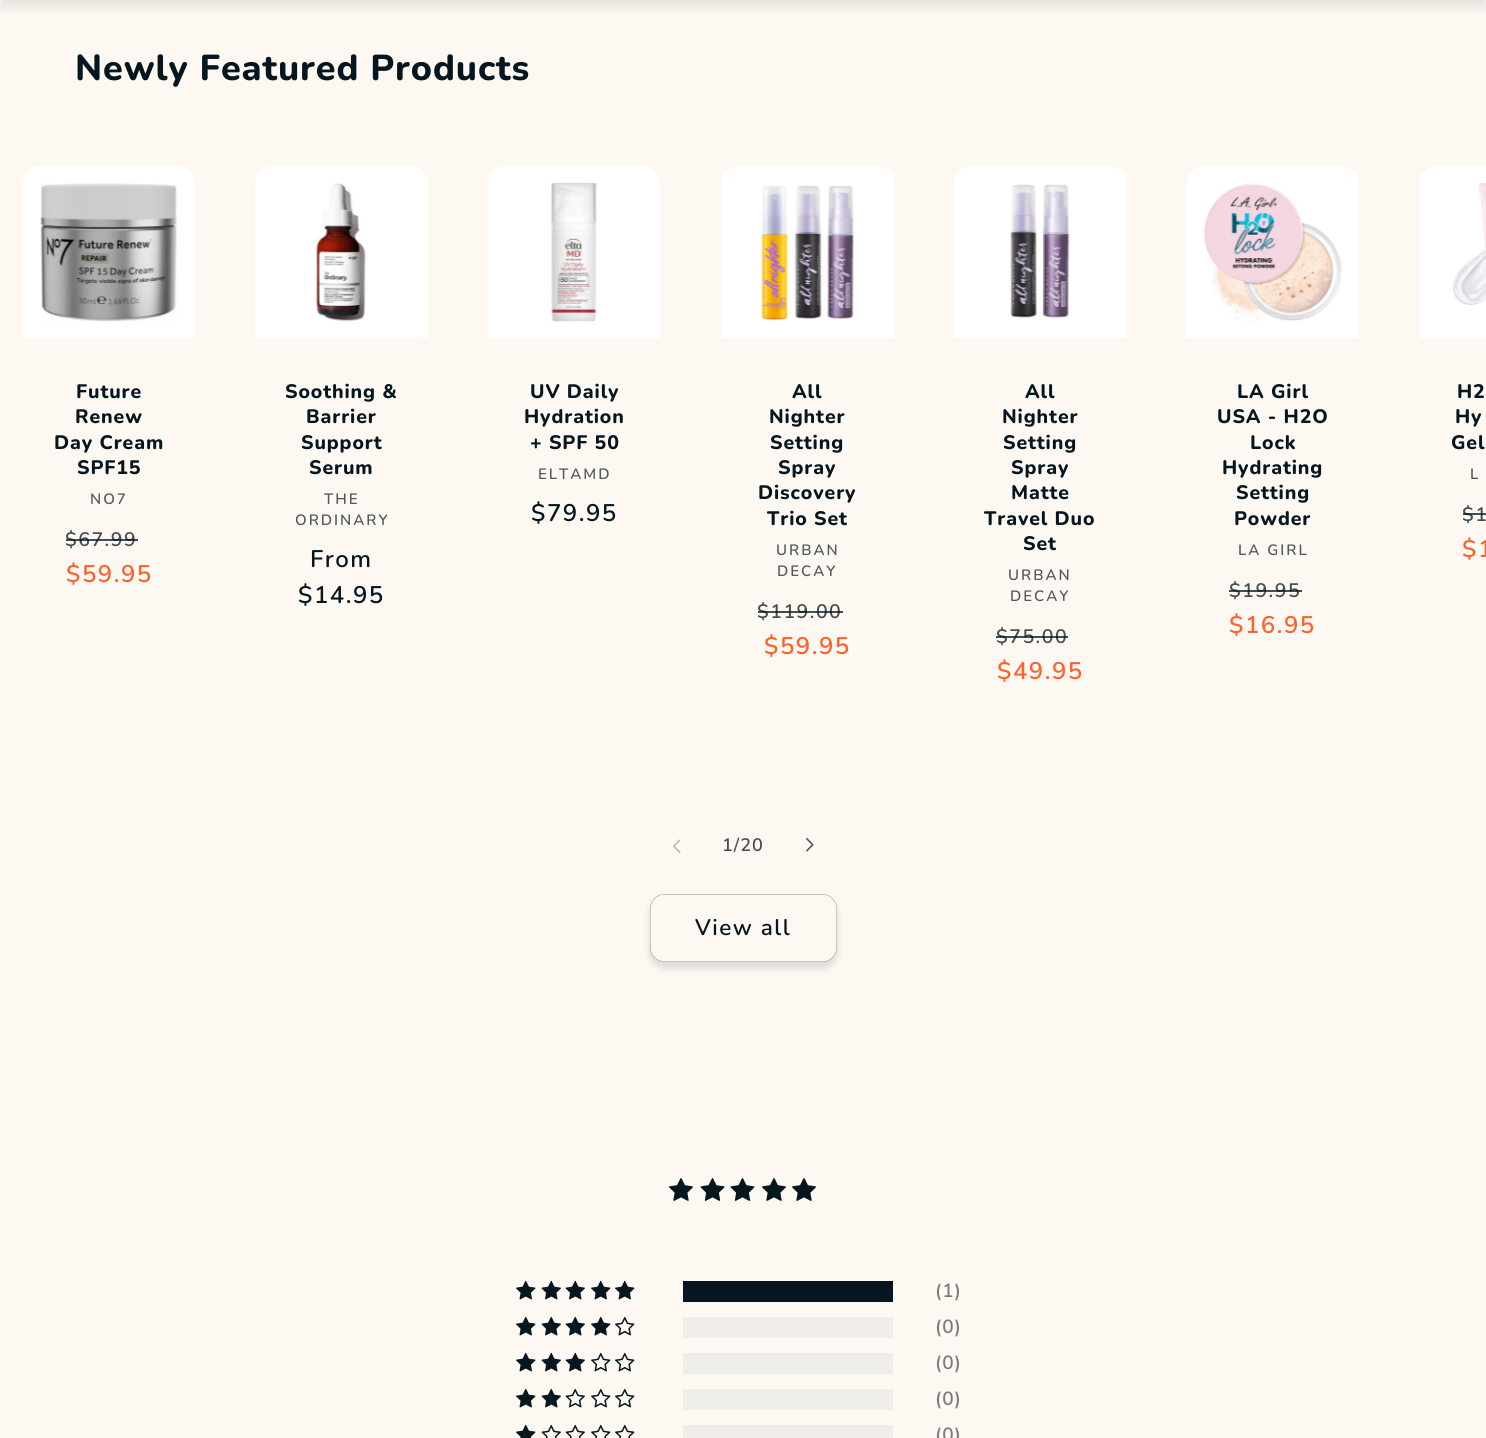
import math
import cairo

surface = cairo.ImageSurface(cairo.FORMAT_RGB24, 1486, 1438)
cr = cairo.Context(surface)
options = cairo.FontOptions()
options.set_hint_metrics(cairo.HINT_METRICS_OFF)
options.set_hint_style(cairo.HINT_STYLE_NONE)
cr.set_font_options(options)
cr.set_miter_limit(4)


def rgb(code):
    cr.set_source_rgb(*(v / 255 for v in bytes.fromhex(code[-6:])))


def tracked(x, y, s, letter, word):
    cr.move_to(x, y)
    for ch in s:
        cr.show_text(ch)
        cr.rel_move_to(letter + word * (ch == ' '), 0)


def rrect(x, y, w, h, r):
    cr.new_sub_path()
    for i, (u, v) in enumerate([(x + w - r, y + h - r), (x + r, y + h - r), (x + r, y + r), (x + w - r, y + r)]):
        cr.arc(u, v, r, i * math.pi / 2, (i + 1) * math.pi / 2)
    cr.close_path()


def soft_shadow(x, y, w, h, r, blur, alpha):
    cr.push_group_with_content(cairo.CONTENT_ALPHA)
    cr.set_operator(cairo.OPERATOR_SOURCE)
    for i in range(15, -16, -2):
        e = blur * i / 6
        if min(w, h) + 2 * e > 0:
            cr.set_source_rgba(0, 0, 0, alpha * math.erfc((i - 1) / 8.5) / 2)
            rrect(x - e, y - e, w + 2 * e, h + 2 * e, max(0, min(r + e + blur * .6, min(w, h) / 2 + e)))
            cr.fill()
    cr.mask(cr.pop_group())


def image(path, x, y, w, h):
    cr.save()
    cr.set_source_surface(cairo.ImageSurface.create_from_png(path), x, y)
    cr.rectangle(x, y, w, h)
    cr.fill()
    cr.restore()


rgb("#fdf9f2")
cr.paint()
rgb("#2e2a39")
soft_shadow(0, -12, 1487, 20, 0, 4, 0.1)
image("img/1.png", 22, 166, 173, 172)
image("img/2.png", 255, 166, 173, 172)
image("img/3.png", 487, 166, 173, 172)
image("img/4.png", 721, 166, 173, 172)
image("img/5.png", 954, 166, 173, 172)
image("img/6.png", 1186, 166, 173, 172)
image("img/7.png", 1419, 166, 67, 172)
image("img/8.png", 673, 839, 8, 14)
image("img/9.png", 806, 838, 8, 14)
rgb("#06161f")
soft_shadow(650, 900, 187, 68, 15, 4, 0.15)
rgb("#fdf9f2")
rrect(650, 894, 187, 68, 15)
cr.fill()
rrect(650.2, 894.2, 186.6, 67.6, 14.8)
cr.set_source_rgba(0.024, 0.086, 0.122, 0.55)
cr.set_line_width(0.4)
cr.stroke()
image("img/10.png", 669, 1178, 24, 23)
image("img/11.png", 700, 1178, 25, 23)
image("img/11.png", 730, 1178, 25, 23)
image("img/10.png", 762, 1178, 24, 23)
image("img/10.png", 792, 1178, 24, 23)
image("img/12.png", 516, 1280, 20, 20)
image("img/13.png", 541, 1280, 20, 20)
image("img/13.png", 565, 1280, 20, 20)
image("img/12.png", 591, 1280, 20, 20)
image("img/12.png", 615, 1280, 20, 20)
rgb("#06161f")
cr.rectangle(683, 1281, 210, 21)
cr.fill()
image("img/12.png", 516, 1316, 20, 20)
image("img/13.png", 541, 1316, 20, 20)
image("img/13.png", 565, 1316, 20, 20)
image("img/12.png", 591, 1316, 20, 20)
image("img/14.png", 615, 1316, 20, 20)
rgb("#efede9")
cr.rectangle(683, 1317, 210, 21)
cr.fill()
image("img/12.png", 516, 1352, 20, 20)
image("img/13.png", 541, 1352, 20, 20)
image("img/13.png", 565, 1352, 20, 20)
image("img/14.png", 591, 1352, 20, 20)
image("img/14.png", 615, 1352, 20, 20)
cr.rectangle(683, 1353, 210, 21)
cr.fill()
image("img/12.png", 516, 1388, 20, 20)
image("img/13.png", 541, 1388, 20, 20)
image("img/15.png", 565, 1388, 20, 20)
image("img/14.png", 591, 1388, 20, 20)
image("img/14.png", 615, 1388, 20, 20)
cr.rectangle(683, 1389, 210, 21)
cr.fill()
image("img/16.png", 516, 1424, 20, 14)
image("img/17.png", 541, 1424, 20, 14)
image("img/17.png", 565, 1424, 20, 14)
image("img/18.png", 591, 1424, 20, 14)
image("img/18.png", 615, 1424, 20, 14)
cr.rectangle(683, 1425, 210, 13)
cr.fill()
cr.select_font_face("Nunito ExtraBold")
cr.set_font_size(36)
rgb("#06161f")
tracked(75, 80, "Newly Featured Products", 0.9, 0)
cr.set_font_size(19.5)
for x, y, s in [
    (76, 398, "Future"),
    (75, 423, "Renew"),
    (54, 449, "Day Cream"),
    (77, 474, "SPF15"),
]:
    tracked(x, y, s, 0.9, 0)
cr.select_font_face("Nunito SemiBold")
cr.set_font_size(15)
rgb("#505a5e")
tracked(90, 504, "NO7", 2, 0)
cr.set_font_size(19.5)
rgb("#444f54")
tracked(65, 546, "$67.99", 1.5, 0)
cr.set_source_rgba(0.024, 0.086, 0.122, 0.75)
cr.rectangle(66, 539, 72, 2)
cr.fill()
cr.set_font_size(24)
rgb("#fc632c")
tracked(66, 582, "$59.95", 1.5, 0)
cr.select_font_face("Nunito ExtraBold")
cr.set_font_size(19.5)
rgb("#06161f")
for x, y, s in [
    (285, 398, "Soothing &"),
    (306, 423, "Barrier"),
    (301, 449, "Support"),
    (309, 474, "Serum"),
]:
    tracked(x, y, s, 0.9, 0)
cr.select_font_face("Nunito SemiBold")
cr.set_font_size(15)
rgb("#505a5e")
tracked(324, 504, "THE", 2, 0)
tracked(295, 525, "ORDINARY", 2, 0)
cr.set_font_size(24)
rgb("#06161f")
tracked(310, 567, "From", 1.5, 0)
tracked(298, 603, "$14.95", 1.5, 0)
cr.select_font_face("Nunito ExtraBold")
cr.set_font_size(19.5)
for x, y, s in [
    (530, 398, "UV Daily"),
    (524, 423, "Hydration"),
    (530, 449, "+ SPF 50"),
]:
    tracked(x, y, s, 0.9, 0)
cr.select_font_face("Nunito SemiBold")
cr.set_font_size(15)
rgb("#505a5e")
tracked(538, 479, "ELTAMD", 2, 0)
cr.set_font_size(24)
rgb("#06161f")
tracked(531, 521, "$79.95", 1.5, 0)
cr.select_font_face("Nunito ExtraBold")
cr.set_font_size(19.5)
for x, y, s in [
    (792, 398, "All"),
    (769, 423, "Nighter"),
    (770, 449, "Setting"),
    (778, 474, "Spray"),
    (758, 499, "Discovery"),
    (767, 525, "Trio Set"),
]:
    tracked(x, y, s, 0.9, 0)
cr.select_font_face("Nunito SemiBold")
cr.set_font_size(15)
rgb("#505a5e")
tracked(776, 555, "URBAN", 2, 0)
tracked(777, 576, "DECAY", 2, 0)
cr.set_font_size(19.5)
rgb("#444f54")
tracked(757, 618, "$119.00", 1.5, 0)
cr.set_source_rgba(0.024, 0.086, 0.122, 0.75)
cr.rectangle(758, 611, 85, 2)
cr.fill()
cr.set_font_size(24)
rgb("#fc632c")
tracked(764, 654, "$59.95", 1.5, 0)
cr.select_font_face("Nunito ExtraBold")
cr.set_font_size(19.5)
rgb("#06161f")
for x, y, s in [
    (1025, 398, "All"),
    (1002, 423, "Nighter"),
    (1003, 449, "Setting"),
    (1011, 474, "Spray"),
    (1011, 499, "Matte"),
    (984, 525, "Travel Duo"),
    (1023, 550, "Set"),
]:
    tracked(x, y, s, 0.9, 0)
cr.select_font_face("Nunito SemiBold")
cr.set_font_size(15)
rgb("#505a5e")
tracked(1008, 580, "URBAN", 2, 0)
tracked(1010, 601, "DECAY", 2, 0)
cr.set_font_size(19.5)
rgb("#444f54")
tracked(996, 643, "$75.00", 1.5, 0)
cr.set_source_rgba(0.024, 0.086, 0.122, 0.75)
cr.rectangle(996, 636, 72, 2)
cr.fill()
cr.set_font_size(24)
rgb("#fc632c")
tracked(997, 679, "$49.95", 1.5, 0)
cr.select_font_face("Nunito ExtraBold")
cr.set_font_size(19.5)
rgb("#06161f")
for x, y, s in [
    (1237, 398, "LA Girl"),
    (1217, 423, "USA - H2O"),
    (1250, 449, "Lock"),
    (1222, 474, "Hydrating"),
    (1236, 499, "Setting"),
    (1234, 525, "Powder"),
]:
    tracked(x, y, s, 0.9, 0)
cr.select_font_face("Nunito SemiBold")
cr.set_font_size(15)
rgb("#505a5e")
tracked(1238, 555, "LA GIRL", 2, 0)
cr.set_font_size(19.5)
rgb("#444f54")
tracked(1229, 597, "$19.95", 1.5, 0)
cr.set_source_rgba(0.024, 0.086, 0.122, 0.75)
cr.rectangle(1229, 590, 73, 2)
cr.fill()
cr.set_font_size(24)
rgb("#fc632c")
tracked(1229, 633, "$16.95", 1.5, 0)
cr.select_font_face("Nunito ExtraBold")
cr.set_font_size(19.5)
rgb("#06161f")
for x, y, s in [
    (1457, 398, "H2"),
    (1455, 423, "Hy"),
    (1451, 449, "Gel"),
]:
    tracked(x, y, s, 0.9, 0)
cr.select_font_face("Nunito SemiBold")
cr.set_font_size(15)
rgb("#505a5e")
tracked(1470, 479, "L", 2, 0)
cr.set_font_size(19.5)
rgb("#444f54")
tracked(1462, 521, "$1", 1.5, 0)
cr.set_source_rgba(0.024, 0.086, 0.122, 0.75)
cr.rectangle(1463, 513, 23, 2)
cr.fill()
cr.set_font_size(24)
rgb("#fc632c")
tracked(1462, 557, "$1", 1.5, 0)
cr.set_font_size(18)
rgb("#444f54")
tracked(722, 851, "1/20", 1, 0)
cr.set_font_size(22.5)
rgb("#06161f")
tracked(695, 935, "View all", 1.5, 0)
cr.set_font_size(19)
rgb("#7b7b7b")
for x, y, s in [
    (935, 1297, "(1)"),
    (935, 1333, "(0)"),
    (935, 1369, "(0)"),
    (935, 1405, "(0)"),
    (935, 1441, "(0)"),
]:
    tracked(x, y, s, 0.9, 0)
surface.write_to_png("page.png")
